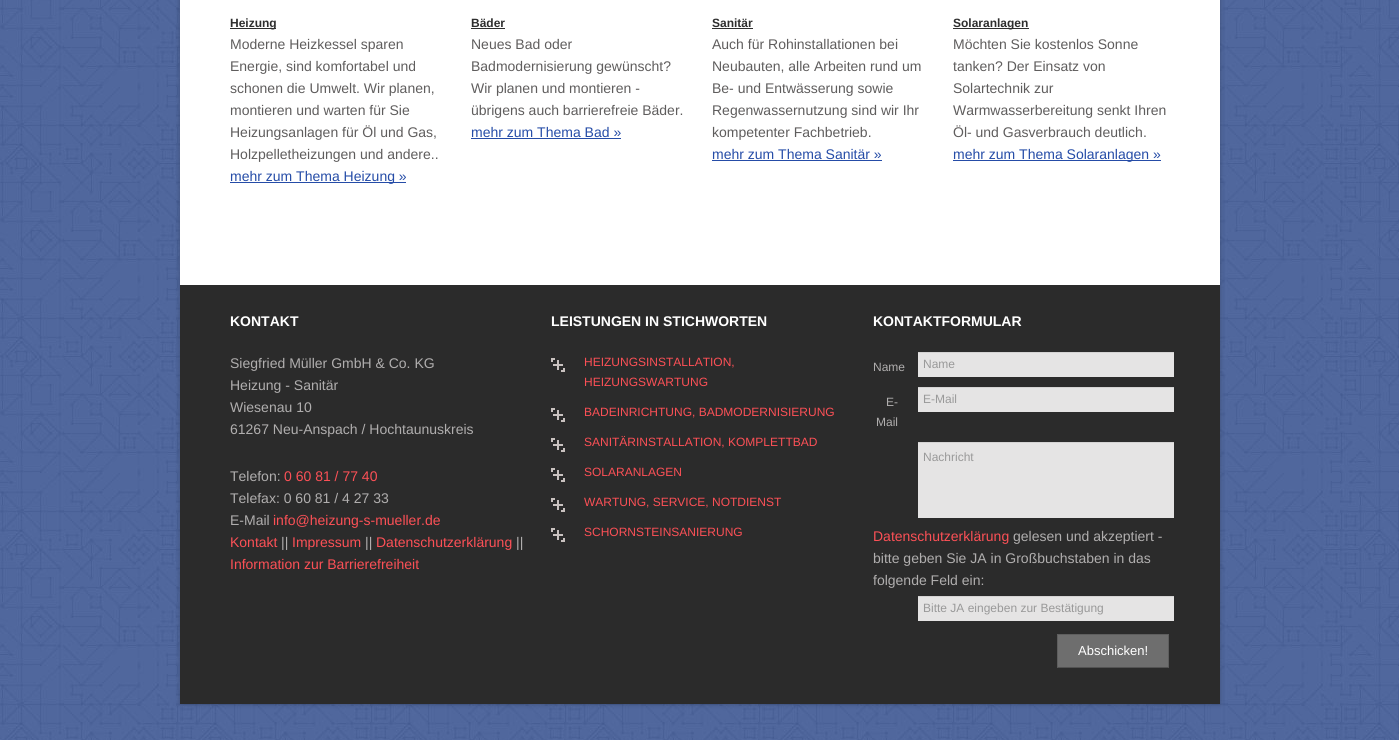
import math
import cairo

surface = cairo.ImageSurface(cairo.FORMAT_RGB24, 1399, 740)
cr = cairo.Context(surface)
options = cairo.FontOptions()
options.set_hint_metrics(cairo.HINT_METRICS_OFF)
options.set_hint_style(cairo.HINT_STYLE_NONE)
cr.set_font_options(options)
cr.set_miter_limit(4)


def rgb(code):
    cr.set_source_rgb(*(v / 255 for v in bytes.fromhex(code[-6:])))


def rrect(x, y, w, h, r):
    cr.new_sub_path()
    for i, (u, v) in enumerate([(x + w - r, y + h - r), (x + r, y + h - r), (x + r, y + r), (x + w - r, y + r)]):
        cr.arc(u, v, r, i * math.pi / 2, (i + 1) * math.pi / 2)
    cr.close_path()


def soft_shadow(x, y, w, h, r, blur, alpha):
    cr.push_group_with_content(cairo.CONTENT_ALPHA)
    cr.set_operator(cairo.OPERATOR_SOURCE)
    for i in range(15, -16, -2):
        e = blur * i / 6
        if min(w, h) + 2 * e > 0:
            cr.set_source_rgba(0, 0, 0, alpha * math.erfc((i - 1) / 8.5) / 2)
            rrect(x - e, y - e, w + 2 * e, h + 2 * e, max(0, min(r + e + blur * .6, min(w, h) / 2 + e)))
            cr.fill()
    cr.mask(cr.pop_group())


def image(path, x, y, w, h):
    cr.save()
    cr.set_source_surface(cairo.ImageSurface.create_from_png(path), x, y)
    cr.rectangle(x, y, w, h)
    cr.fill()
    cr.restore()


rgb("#ffffff")
cr.paint()
image("img/1.png", 0, 0, 1399, 740)
rgb("#000000")
soft_shadow(180, -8, 1040, 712, 0, 2.5, 0.25)
for x, y, w, h, color in [
    (180, 0, 1040, 285, "#ffffff"),
    (230, 28, 46, 1, "#2e2e2e"),
    (230, 182, 176, 1, "#254ca7"),
    (471, 28, 34, 1, "#2e2e2e"),
    (471, 138, 150, 1, "#254ca7"),
    (712, 28, 41, 1, "#2e2e2e"),
    (712, 160, 170, 1, "#254ca7"),
    (953, 28, 76, 1, "#2e2e2e"),
    (953, 160, 208, 1, "#254ca7"),
    (180, 285, 1040, 419, "#2b2b2b"),
]:
    rgb(color)
    cr.rectangle(x, y, w, h)
    cr.fill()
image("img/2.png", 551, 358, 14, 14)
image("img/2.png", 551, 408, 14, 14)
image("img/2.png", 551, 438, 14, 14)
image("img/2.png", 551, 468, 14, 14)
image("img/2.png", 551, 498, 14, 14)
image("img/2.png", 551, 528, 14, 14)
for x, y, w, h, color in [
    (918, 353, 256, 24, "#e5e4e4"),
    (918, 352, 256, 1, "#d4d3d3"),
    (918, 388, 256, 24, "#e5e4e4"),
    (918, 387, 256, 1, "#d4d3d3"),
    (918, 443, 256, 75, "#e5e4e4"),
    (918, 442, 256, 1, "#d4d3d3"),
    (918, 597, 256, 24, "#e5e4e4"),
    (918, 596, 256, 1, "#d4d3d3"),
    (1057, 634, 112, 34, "#6e6e6e"),
]:
    rgb(color)
    cr.rectangle(x, y, w, h)
    cr.fill()
rgb("#5e5e5e")
cr.new_path()
cr.move_to(1057, 634)
cr.line_to(1169, 634)
cr.line_to(1168, 635)
cr.line_to(1058, 635)
cr.close_path()
cr.fill()
cr.set_source_rgba(0, 0, 0, 0.15)
cr.new_path()
cr.move_to(1169, 634)
cr.line_to(1169, 668)
cr.line_to(1168, 667)
cr.line_to(1168, 635)
cr.close_path()
cr.fill()
cr.set_source_rgba(0, 0, 0, 0.25)
cr.new_path()
cr.move_to(1169, 668)
cr.line_to(1057, 668)
cr.line_to(1058, 667)
cr.line_to(1168, 667)
cr.close_path()
cr.fill()
cr.set_source_rgba(0, 0, 0, 0.15)
cr.new_path()
cr.move_to(1057, 668)
cr.line_to(1057, 634)
cr.line_to(1058, 635)
cr.line_to(1058, 667)
cr.close_path()
cr.fill()
cr.select_font_face("Liberation Sans", cairo.FONT_SLANT_NORMAL, cairo.FONT_WEIGHT_BOLD)
cr.set_font_size(12)
rgb("#2e2e2e")
cr.move_to(230, 27)
cr.show_text("Heizung")
cr.select_font_face("Liberation Sans")
cr.set_font_size(14)
rgb("#5f5d5d")
for x, y, s in [
    (230, 49, "Moderne Heizkessel sparen"),
    (230, 71, "Energie, sind komfortabel und"),
    (230, 93, "schonen die Umwelt. Wir planen,"),
    (230, 115, "montieren und warten für Sie"),
    (230, 137, "Heizungsanlagen für Öl und Gas,"),
    (230, 159, "Holzpelletheizungen und andere.."),
]:
    cr.move_to(x, y)
    cr.show_text(s)
rgb("#254ca7")
cr.move_to(230, 181)
cr.show_text("mehr zum Thema Heizung »")
cr.select_font_face("Liberation Sans", cairo.FONT_SLANT_NORMAL, cairo.FONT_WEIGHT_BOLD)
cr.set_font_size(12)
rgb("#2e2e2e")
cr.move_to(471, 27)
cr.show_text("Bäder")
cr.select_font_face("Liberation Sans")
cr.set_font_size(14)
rgb("#5f5d5d")
for x, y, s in [
    (471, 49, "Neues Bad oder"),
    (471, 71, "Badmodernisierung gewünscht?"),
    (471, 93, "Wir planen und montieren -"),
    (471, 115, "übrigens auch barrierefreie Bäder."),
]:
    cr.move_to(x, y)
    cr.show_text(s)
rgb("#254ca7")
cr.move_to(471, 137)
cr.show_text("mehr zum Thema Bad »")
cr.select_font_face("Liberation Sans", cairo.FONT_SLANT_NORMAL, cairo.FONT_WEIGHT_BOLD)
cr.set_font_size(12)
rgb("#2e2e2e")
cr.move_to(712, 27)
cr.show_text("Sanitär")
cr.select_font_face("Liberation Sans")
cr.set_font_size(14)
rgb("#5f5d5d")
for x, y, s in [
    (712, 49, "Auch für Rohinstallationen bei"),
    (712, 71, "Neubauten, alle Arbeiten rund um"),
    (712, 93, "Be- und Entwässerung sowie"),
    (712, 115, "Regenwassernutzung sind wir Ihr"),
    (712, 137, "kompetenter Fachbetrieb."),
]:
    cr.move_to(x, y)
    cr.show_text(s)
rgb("#254ca7")
cr.move_to(712, 159)
cr.show_text("mehr zum Thema Sanitär »")
cr.select_font_face("Liberation Sans", cairo.FONT_SLANT_NORMAL, cairo.FONT_WEIGHT_BOLD)
cr.set_font_size(12)
rgb("#2e2e2e")
cr.move_to(953, 27)
cr.show_text("Solaranlagen")
cr.select_font_face("Liberation Sans")
cr.set_font_size(14)
rgb("#5f5d5d")
for x, y, s in [
    (953, 49, "Möchten Sie kostenlos Sonne"),
    (953, 71, "tanken? Der Einsatz von"),
    (953, 93, "Solartechnik zur"),
    (953, 115, "Warmwasserbereitung senkt Ihren"),
    (953, 137, "Öl- und Gasverbrauch deutlich."),
]:
    cr.move_to(x, y)
    cr.show_text(s)
rgb("#254ca7")
cr.move_to(953, 159)
cr.show_text("mehr zum Thema Solaranlagen »")
cr.select_font_face("Liberation Sans", cairo.FONT_SLANT_NORMAL, cairo.FONT_WEIGHT_BOLD)
rgb("#ffffff")
cr.move_to(230, 326)
cr.show_text("KONTAKT")
cr.select_font_face("Liberation Sans")
rgb("#b0aeae")
for x, y, s in [
    (230, 368, "Siegfried Müller GmbH & Co. KG"),
    (230, 390, "Heizung - Sanitär"),
    (230, 412, "Wiesenau 10"),
    (230, 434, "61267 Neu-Anspach / Hochtaunuskreis"),
    (230, 481, "Telefon:"),
]:
    cr.move_to(x, y)
    cr.show_text(s)
rgb("#fc5056")
cr.move_to(284, 481)
cr.show_text("0 60 81 / 77 40")
rgb("#b0aeae")
cr.move_to(230, 503)
cr.show_text("Telefax: 0 60 81 / 4 27 33")
cr.move_to(230, 525)
cr.show_text("E-Mail")
rgb("#fc5056")
cr.move_to(273, 525)
cr.show_text("info@heizung-s-mueller.de")
cr.move_to(230, 547)
cr.show_text("Kontakt")
rgb("#b0aeae")
cr.move_to(281, 547)
cr.show_text("||")
rgb("#fc5056")
cr.move_to(292, 547)
cr.show_text("Impressum")
rgb("#b0aeae")
cr.move_to(365, 547)
cr.show_text("||")
rgb("#fc5056")
cr.move_to(376, 547)
cr.show_text("Datenschutzerklärung")
rgb("#b0aeae")
cr.move_to(516, 547)
cr.show_text("||")
rgb("#fc5056")
cr.move_to(230, 569)
cr.show_text("Information zur Barrierefreiheit")
cr.select_font_face("Liberation Sans", cairo.FONT_SLANT_NORMAL, cairo.FONT_WEIGHT_BOLD)
rgb("#ffffff")
cr.move_to(551, 326)
cr.show_text("LEISTUNGEN IN STICHWORTEN")
cr.select_font_face("Liberation Sans")
cr.set_font_size(12)
rgb("#fc5056")
for x, y, s in [
    (584, 366, "HEIZUNGSINSTALLATION,"),
    (584, 386, "HEIZUNGSWARTUNG"),
    (584, 416, "BADEINRICHTUNG, BADMODERNISIERUNG"),
    (584, 446, "SANITÄRINSTALLATION, KOMPLETTBAD"),
    (584, 476, "SOLARANLAGEN"),
    (584, 506, "WARTUNG, SERVICE, NOTDIENST"),
    (584, 536, "SCHORNSTEINSANIERUNG"),
]:
    cr.move_to(x, y)
    cr.show_text(s)
cr.select_font_face("Liberation Sans", cairo.FONT_SLANT_NORMAL, cairo.FONT_WEIGHT_BOLD)
cr.set_font_size(14)
rgb("#ffffff")
cr.move_to(873, 326)
cr.show_text("KONTAKTFORMULAR")
cr.select_font_face("Liberation Sans")
cr.set_font_size(12)
rgb("#b0aeae")
cr.move_to(873, 371)
cr.show_text("Name")
rgb("#999999")
cr.move_to(923, 368)
cr.show_text("Name")
rgb("#b0aeae")
cr.move_to(886, 406)
cr.show_text("E-")
cr.move_to(876, 426)
cr.show_text("Mail")
rgb("#999999")
cr.move_to(923, 403)
cr.show_text("E-Mail")
cr.move_to(923, 461)
cr.show_text("Nachricht")
cr.set_font_size(14)
rgb("#fc5056")
cr.move_to(873, 541)
cr.show_text("Datenschutzerklärung")
rgb("#b0aeae")
for x, y, s in [
    (1013, 541, "gelesen und akzeptiert -"),
    (873, 563, "bitte geben Sie JA in Großbuchstaben in das"),
    (873, 585, "folgende Feld ein:"),
]:
    cr.move_to(x, y)
    cr.show_text(s)
cr.set_font_size(12)
rgb("#999999")
cr.move_to(923, 612)
cr.show_text("Bitte JA eingeben zur Bestätigung")
cr.set_font_size(13)
rgb("#ffffff")
cr.move_to(1078, 655)
cr.show_text("Abschicken!")
surface.write_to_png("page.png")
